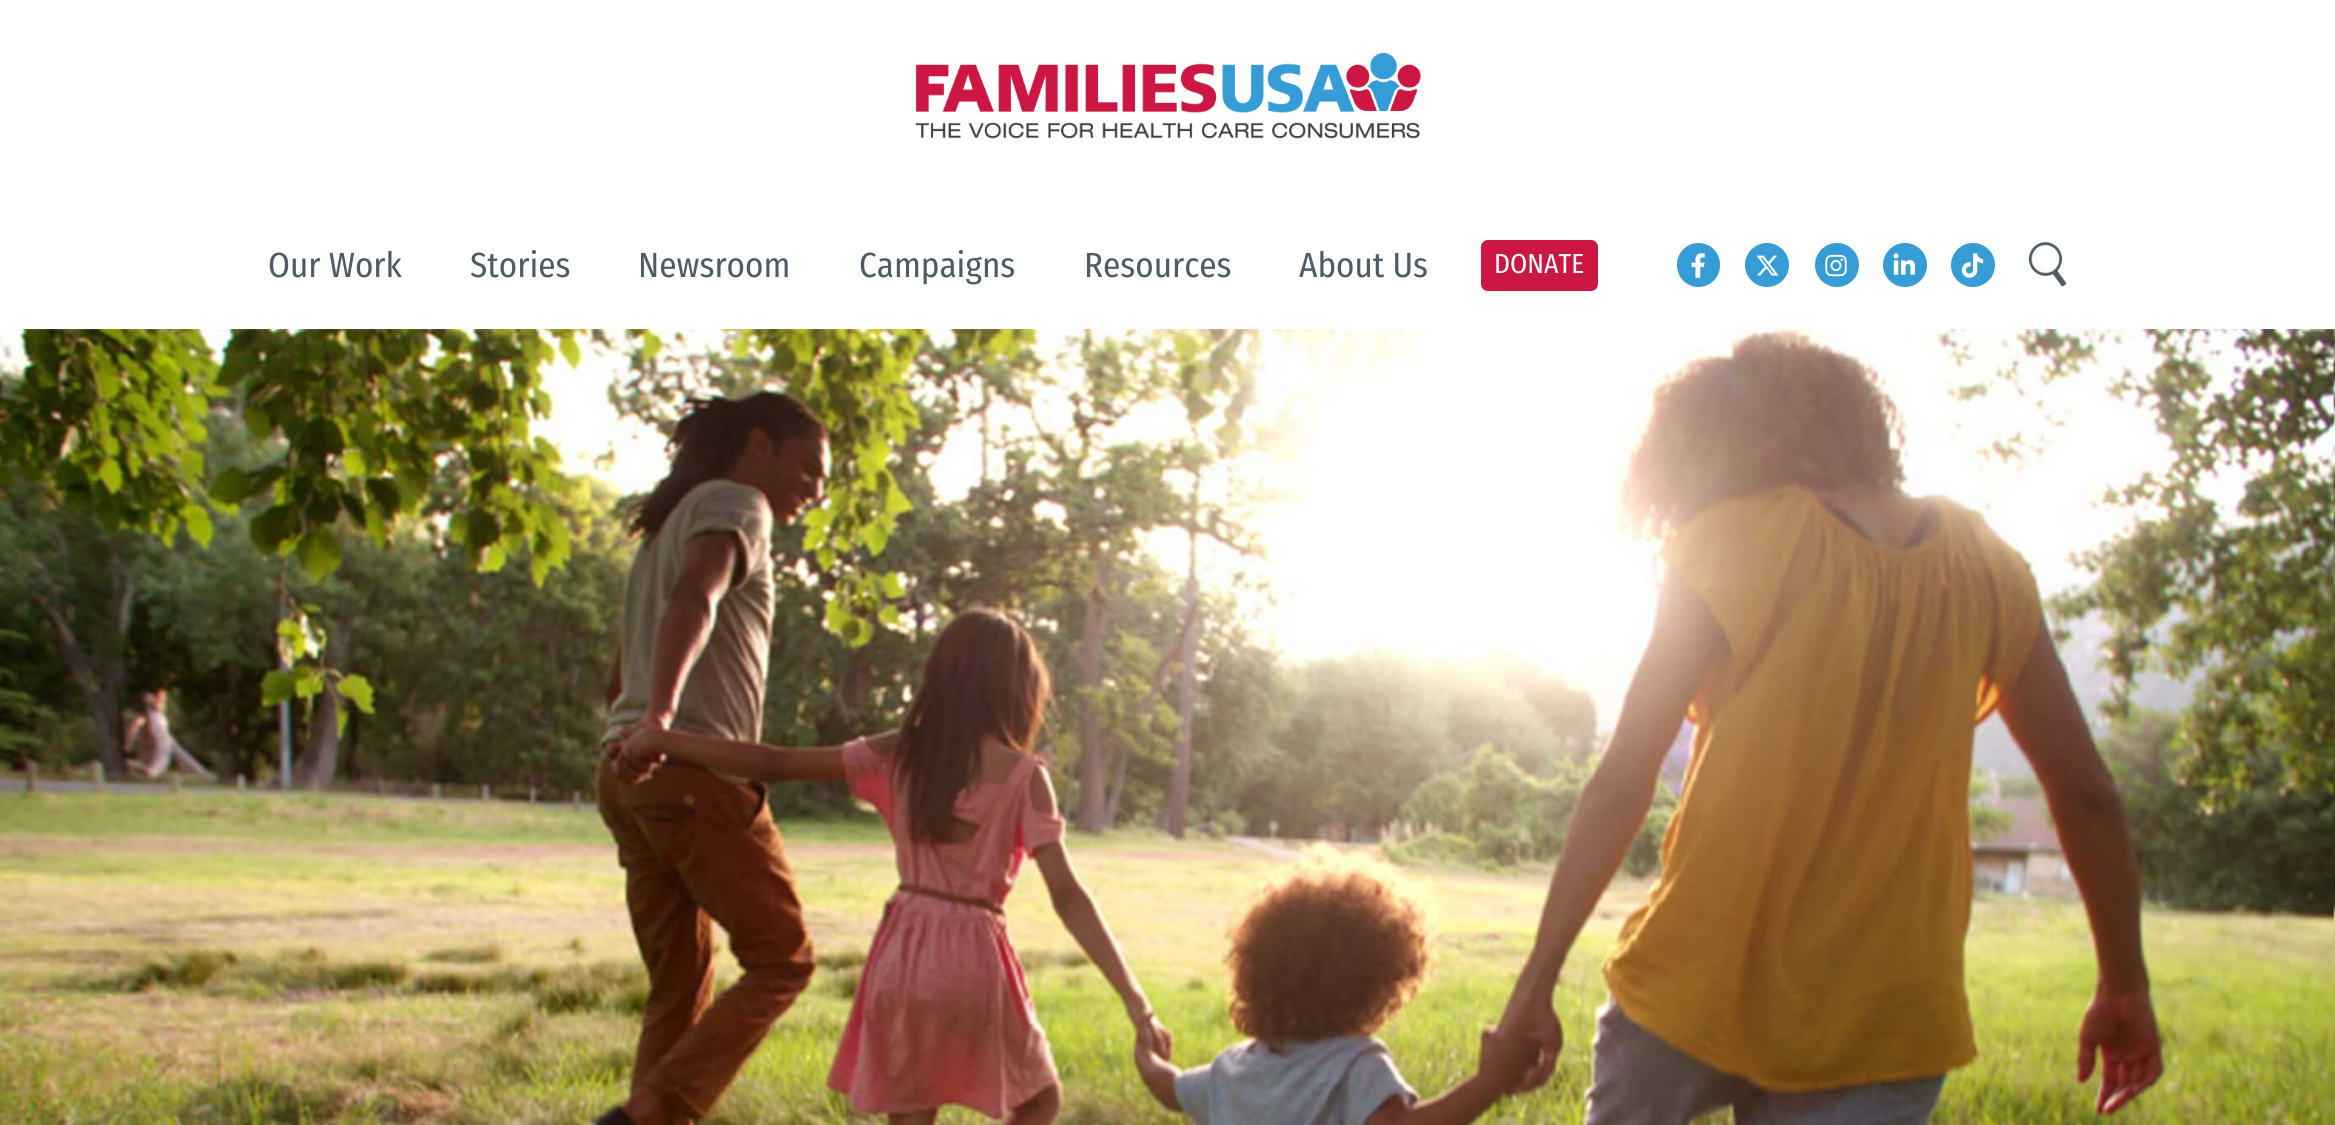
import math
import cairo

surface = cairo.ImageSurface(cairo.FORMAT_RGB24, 2335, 1125)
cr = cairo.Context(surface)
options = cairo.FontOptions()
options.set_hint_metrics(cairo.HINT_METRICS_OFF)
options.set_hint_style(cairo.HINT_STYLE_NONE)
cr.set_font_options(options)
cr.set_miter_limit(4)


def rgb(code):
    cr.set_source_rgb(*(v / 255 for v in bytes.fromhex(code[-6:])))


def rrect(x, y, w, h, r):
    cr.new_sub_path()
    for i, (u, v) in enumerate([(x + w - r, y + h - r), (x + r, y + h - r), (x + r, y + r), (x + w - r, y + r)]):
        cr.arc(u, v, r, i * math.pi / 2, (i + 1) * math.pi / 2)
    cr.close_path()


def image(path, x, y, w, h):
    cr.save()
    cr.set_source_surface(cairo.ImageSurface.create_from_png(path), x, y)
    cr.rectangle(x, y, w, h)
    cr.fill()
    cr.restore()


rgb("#ffffff")
cr.paint()
image("img/1.png", 915, 52, 506, 87)
rgb("#cb1742")
rrect(1481, 240, 117, 51, 7)
cr.fill()
rgb("#359cd5")
rrect(1677, 243, 43, 44, 21.5)
cr.fill()
image("img/2.png", 1691, 253, 14, 25)
cr.arc(1767, 265, 22, 0, 2 * math.pi)
cr.fill()
image("img/3.png", 1756, 255, 23, 21)
cr.arc(1837, 265, 22, 0, 2 * math.pi)
cr.fill()
image("img/4.png", 1825, 254, 22, 23)
cr.arc(1905, 265, 22, 0, 2 * math.pi)
cr.fill()
image("img/5.png", 1893, 253, 22, 22)
cr.arc(1973, 265, 22, 0, 2 * math.pi)
cr.fill()
image("img/6.png", 1961, 253, 23, 25)
image("img/7.png", 2028, 241, 39, 46)
image("img/8.png", 0, 329, 2335, 796)
cr.select_font_face("Fira Sans Condensed")
cr.set_font_size(35)
rgb("#4d5b65")
for x, y, s in [
    (268, 277, "Our Work"),
    (470, 277, "Stories"),
    (638, 277, "Newsroom"),
    (859, 277, "Campaigns"),
    (1084, 277, "Resources"),
    (1299, 277, "About Us"),
]:
    cr.move_to(x, y)
    cr.show_text(s)
cr.set_font_size(27.5)
rgb("#ffffff")
cr.move_to(1494, 273)
cr.show_text("DONATE")
surface.write_to_png("page.png")
